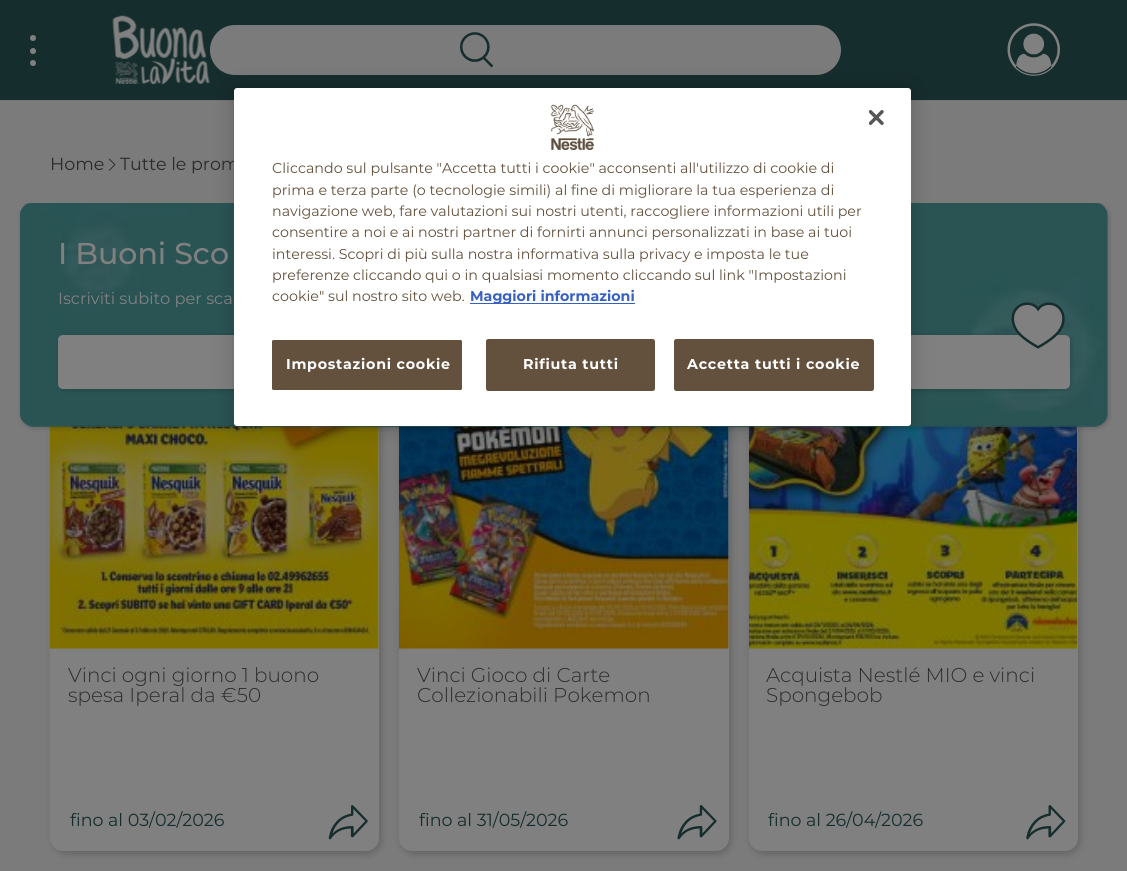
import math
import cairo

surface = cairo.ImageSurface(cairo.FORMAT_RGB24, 1127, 871)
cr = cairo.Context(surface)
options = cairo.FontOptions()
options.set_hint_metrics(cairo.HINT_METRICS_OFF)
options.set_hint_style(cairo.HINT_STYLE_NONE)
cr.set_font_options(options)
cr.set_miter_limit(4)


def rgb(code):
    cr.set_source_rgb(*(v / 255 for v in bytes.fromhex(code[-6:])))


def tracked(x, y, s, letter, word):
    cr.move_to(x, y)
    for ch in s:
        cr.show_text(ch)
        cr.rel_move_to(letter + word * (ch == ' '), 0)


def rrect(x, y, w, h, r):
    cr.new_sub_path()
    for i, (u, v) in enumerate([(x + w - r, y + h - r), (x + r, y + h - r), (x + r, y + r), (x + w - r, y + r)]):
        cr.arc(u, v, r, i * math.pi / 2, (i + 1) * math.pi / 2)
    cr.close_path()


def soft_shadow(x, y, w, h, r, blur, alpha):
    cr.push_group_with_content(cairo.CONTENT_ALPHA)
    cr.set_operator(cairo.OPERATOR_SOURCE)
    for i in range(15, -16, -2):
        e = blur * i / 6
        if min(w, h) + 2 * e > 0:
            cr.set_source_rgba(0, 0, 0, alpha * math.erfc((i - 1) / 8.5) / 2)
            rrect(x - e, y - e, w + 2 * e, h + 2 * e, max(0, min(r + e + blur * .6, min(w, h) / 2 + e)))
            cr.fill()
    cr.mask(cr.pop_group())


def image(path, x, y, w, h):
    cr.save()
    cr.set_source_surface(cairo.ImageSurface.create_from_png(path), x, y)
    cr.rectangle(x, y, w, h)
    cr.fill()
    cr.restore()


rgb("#7b7b7b")
cr.paint()
rgb("#000000")
soft_shadow(0, 0, 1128, 100, 0, 0.5, 0.2)
rgb("#162d2d")
cr.rectangle(0, 0, 1127, 100)
cr.fill()
rgb("#808080")
cr.arc(33, 51, 3, 0, 2 * math.pi)
cr.fill()
cr.arc(33, 38, 3, 0, 2 * math.pi)
cr.fill()
cr.arc(33, 63, 3, 0, 2 * math.pi)
cr.fill()
image("img/1.png", 112, 15, 98, 70)
rgb("#7b7b7b")
rrect(210, 25, 631, 50, 25)
cr.fill()
image("img/2.png", 460, 32, 33, 36)
image("img/3.png", 1007, 23, 53, 53)
image("img/4.png", 108, 158, 8, 13)
rgb("#000000")
soft_shadow(53, 289, 328, 565, 13, 4, 0.2)
rgb("#808080")
rrect(50, 286, 329, 565, 13)
cr.fill()
image("img/6.png", 50, 425, 329, 224)
rgb("#000000")
soft_shadow(401, 289, 330, 565, 13, 4, 0.2)
rgb("#808080")
rrect(399, 286, 330, 565, 13)
cr.fill()
image("img/8.png", 399, 426, 330, 223)
rgb("#000000")
soft_shadow(751, 289, 329, 565, 13, 4, 0.2)
rgb("#808080")
rrect(749, 286, 329, 565, 13)
cr.fill()
image("img/11.png", 749, 425, 329, 224)
cr.save()
cr.rectangle(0, 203, 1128, 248)
cr.clip()
rgb("#000000")
soft_shadow(21, 204, 1088, 224, 13, 2.5, 0.2)
cr.restore()
image("img/5.png", 20, 203, 1088, 224)
rgb("#000000")
soft_shadow(59, 336, 1012, 54, 5, 2.5, 0.2)
rgb("#808080")
rrect(58, 335, 1012, 54, 5)
cr.fill()
image("img/7.png", 328, 805, 40, 35)
image("img/9.png", 677, 805, 40, 35)
image("img/10.png", 1011, 302, 54, 47)
image("img/12.png", 1026, 805, 40, 35)
rgb("#000000")
soft_shadow(234, 88, 677, 338, 3, 11, 0.2)
cr.select_font_face("Montserrat")
cr.set_font_size(17.5)
rgb("#2b2b2b")
cr.move_to(50, 170)
cr.show_text("Home")
cr.move_to(120, 170)
cr.show_text("Tutte le prom")
cr.select_font_face("Montserrat Medium")
cr.set_font_size(30)
rgb("#808080")
cr.move_to(58, 264)
cr.show_text("I Buoni Sco")
cr.select_font_face("Montserrat")
cr.set_font_size(16.25)
cr.move_to(58, 304)
cr.show_text("Iscriviti subito per sca")
cr.select_font_face("Montserrat Light")
cr.set_font_size(20)
rgb("#2b2b2b")
cr.move_to(68, 682)
cr.show_text("Vinci ogni giorno 1 buono")
cr.move_to(68, 702)
cr.show_text("spesa Iperal da €50")
cr.select_font_face("Montserrat")
cr.set_font_size(17.5)
rgb("#162d2d")
cr.move_to(70, 826)
cr.show_text("fino al 03/02/2026")
cr.select_font_face("Montserrat Light")
cr.set_font_size(20)
rgb("#2b2b2b")
cr.move_to(417, 682)
cr.show_text("Vinci Gioco di Carte")
cr.move_to(417, 702)
cr.show_text("Collezionabili Pokemon")
cr.select_font_face("Montserrat")
cr.set_font_size(17.5)
rgb("#162d2d")
cr.move_to(419, 826)
cr.show_text("fino al 31/05/2026")
cr.select_font_face("Montserrat Light")
cr.set_font_size(20)
rgb("#2b2b2b")
cr.move_to(766, 682)
cr.show_text("Acquista Nestlé MIO e vinci")
cr.move_to(766, 702)
cr.show_text("Spongebob")
cr.select_font_face("Montserrat")
cr.set_font_size(17.5)
rgb("#162d2d")
cr.move_to(768, 826)
cr.show_text("fino al 26/04/2026")
rgb("#ffffff")
rrect(234, 88, 677, 338, 3)
cr.fill()
image("img/13.png", 869, 110, 15, 15)
image("img/14.png", 550, 104, 44, 46)
cr.set_font_size(14.25)
rgb("#63513d")
for x, y, s in [
    (272, 173, "Cliccando sul pulsante \"Accetta tutti i cookie\" acconsenti all'utilizzo di cookie di"),
    (272, 195, "prima e terza parte (o tecnologie simili) al fine di migliorare la tua esperienza di"),
    (272, 216, "navigazione web, fare valutazioni sui nostri utenti, raccogliere informazioni utili per"),
    (272, 237, "consentire a noi e ai nostri partner di fornirti annunci personalizzati in base ai tuoi"),
    (272, 259, "interessi. Scopri di più sulla nostra informativa sulla privacy e imposta le tue"),
    (272, 280, "preferenze cliccando qui o in qualsiasi momento cliccando sul link \"Impostazioni"),
    (272, 301, "cookie\" sul nostro sito web."),
]:
    cr.move_to(x, y)
    cr.show_text(s)
rgb("#3860be")
cr.rectangle(470, 303, 165, 1)
cr.fill()
cr.select_font_face("Montserrat", cairo.FONT_SLANT_NORMAL, cairo.FONT_WEIGHT_BOLD)
cr.move_to(470, 301)
cr.show_text("Maggiori informazioni")
rgb("#64513d")
rrect(271.5, 339.5, 191, 51, 2)
cr.fill_preserve()
rgb("#ffffff")
cr.set_line_width(1)
cr.stroke()
tracked(286, 369, "Impostazioni cookie", 0.75, 0)
rgb("#64513d")
rrect(486.5, 339.5, 168, 51, 2)
cr.fill_preserve()
cr.stroke()
rgb("#ffffff")
tracked(523, 369, "Rifiuta tutti", 0.75, 0)
rgb("#64513d")
rrect(674.5, 339.5, 199, 51, 2)
cr.fill_preserve()
cr.stroke()
rgb("#ffffff")
tracked(687, 369, "Accetta tutti i cookie", 0.75, 0)
surface.write_to_png("page.png")
